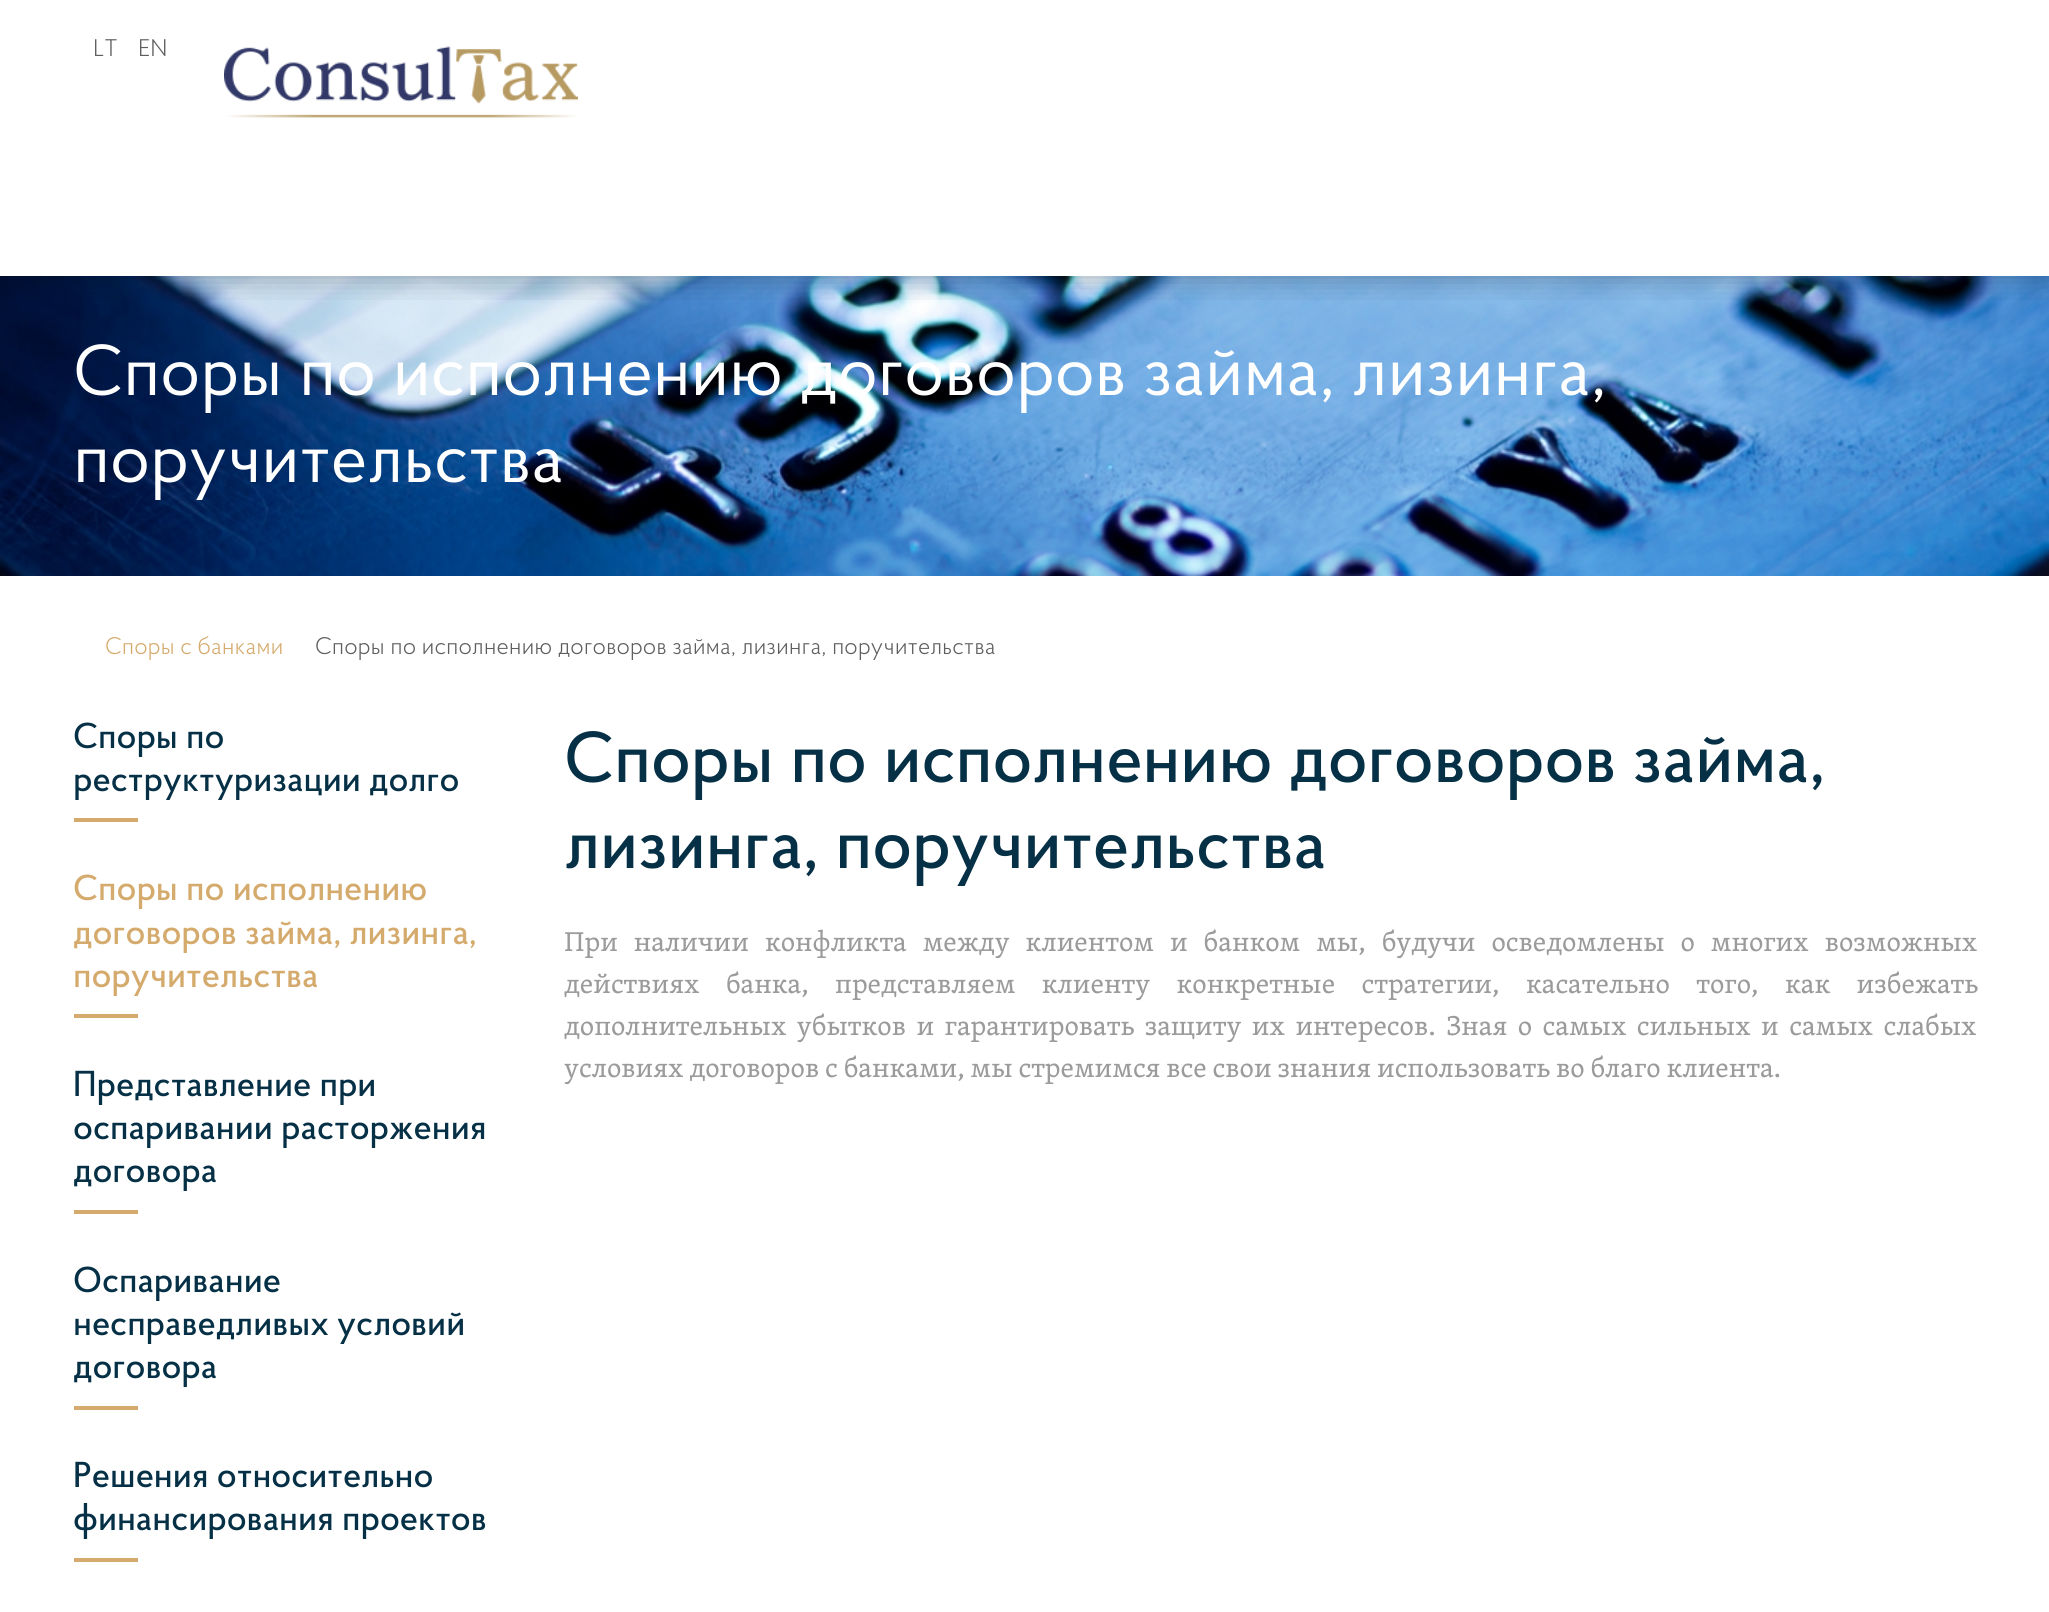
import math
import cairo

surface = cairo.ImageSurface(cairo.FORMAT_RGB24, 2049, 1612)
cr = cairo.Context(surface)
options = cairo.FontOptions()
options.set_hint_metrics(cairo.HINT_METRICS_OFF)
options.set_hint_style(cairo.HINT_STYLE_NONE)
cr.set_font_options(options)
cr.set_miter_limit(4)


def rgb(code):
    cr.set_source_rgb(*(v / 255 for v in bytes.fromhex(code[-6:])))


def tracked(x, y, s, letter, word):
    cr.move_to(x, y)
    for ch in s:
        cr.show_text(ch)
        cr.rel_move_to(letter + word * (ch == ' '), 0)


def rrect(x, y, w, h, r):
    cr.new_sub_path()
    for i, (u, v) in enumerate([(x + w - r, y + h - r), (x + r, y + h - r), (x + r, y + r), (x + w - r, y + r)]):
        cr.arc(u, v, r, i * math.pi / 2, (i + 1) * math.pi / 2)
    cr.close_path()


def soft_shadow(x, y, w, h, r, blur, alpha):
    cr.push_group_with_content(cairo.CONTENT_ALPHA)
    cr.set_operator(cairo.OPERATOR_SOURCE)
    for i in range(15, -16, -2):
        e = blur * i / 6
        if min(w, h) + 2 * e > 0:
            cr.set_source_rgba(0, 0, 0, alpha * math.erfc((i - 1) / 8.5) / 2)
            rrect(x - e, y - e, w + 2 * e, h + 2 * e, max(0, min(r + e + blur * .6, min(w, h) / 2 + e)))
            cr.fill()
    cr.mask(cr.pop_group())


def image(path, x, y, w, h):
    cr.save()
    cr.set_source_surface(cairo.ImageSurface.create_from_png(path), x, y)
    cr.rectangle(x, y, w, h)
    cr.fill()
    cr.restore()


rgb("#ffffff")
cr.paint()
image("img/2.png", 0, 276, 2049, 300)
cr.save()
cr.rectangle(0, 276, 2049, 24)
cr.clip()
rgb("#000000")
soft_shadow(0, 0, 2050, 276, 0, 16, 0.31)
cr.restore()
image("img/1.png", 224, 46, 354, 72)
for x, y, w, h, color in [
    (74, 818, 64, 4, "#d5aa6d"),
    (74, 1014, 64, 4, "#d5aa6d"),
    (74, 1210, 64, 4, "#d5aa6d"),
    (74, 1406, 64, 4, "#d5aa6d"),
    (74, 1558, 64, 4, "#d5aa6d"),
]:
    rgb(color)
    cr.rectangle(x, y, w, h)
    cr.fill()
cr.select_font_face("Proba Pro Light")
cr.set_font_size(24)
rgb("#5f5f5f")
cr.move_to(93, 56)
cr.show_text("LT")
cr.move_to(138, 56)
cr.show_text("EN")
cr.select_font_face("Proba Pro")
cr.set_font_size(72)
rgb("#ffffff")
cr.move_to(73, 395)
cr.show_text("Споры по исполнению договоров займа, лизинга,")
cr.move_to(73, 482)
cr.show_text("поручительства")
cr.select_font_face("Proba Pro Light")
cr.set_font_size(24)
rgb("#d5aa6d")
cr.move_to(105, 654)
cr.show_text("Споры с банками")
rgb("#5f5f5f")
cr.move_to(315, 654)
cr.show_text("Споры по исполнению договоров займа, лизинга, поручительства")
cr.select_font_face("Proba Pro Medium")
cr.set_font_size(36)
rgb("#053046")
cr.move_to(73, 748)
cr.show_text("Споры по")
cr.move_to(73, 791)
cr.show_text("реструктуризации долго")
rgb("#d5aa6d")
for x, y, s in [
    (73, 900, "Споры по исполнению"),
    (73, 944, "договоров займа, лизинга,"),
    (73, 987, "поручительства"),
]:
    cr.move_to(x, y)
    cr.show_text(s)
rgb("#053046")
for x, y, s in [
    (73, 1096, "Представление при"),
    (73, 1139, "оспаривании расторжения"),
    (73, 1182, "договора"),
    (73, 1292, "Оспаривание"),
    (73, 1335, "несправедливых условий"),
    (73, 1378, "договора"),
    (73, 1487, "Решения относительно"),
    (73, 1530, "финансирования проектов"),
]:
    cr.move_to(x, y)
    cr.show_text(s)
cr.set_font_size(72)
cr.move_to(564, 782)
cr.show_text("Споры по исполнению договоров займа,")
cr.move_to(564, 868)
cr.show_text("лизинга, поручительства")
cr.select_font_face("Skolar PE")
cr.set_font_size(28)
rgb("#9b9b9b")
tracked(564, 951, "При наличии конфликта между клиентом и банком мы, будучи осведомлены о многих возможных", 0, 10.1)
tracked(564, 993, "действиях банка, представляем клиенту конкретные стратегии, касательно того, как избежать", 0, 20.5)
tracked(564, 1035, "дополнительных убытков и гарантировать защиту их интересов. Зная о самых сильных и самых слабых", 0, 4.6)
cr.move_to(564, 1077)
cr.show_text("условиях договоров с банками, мы стремимся все свои знания использовать во благо клиента.")
surface.write_to_png("page.png")
